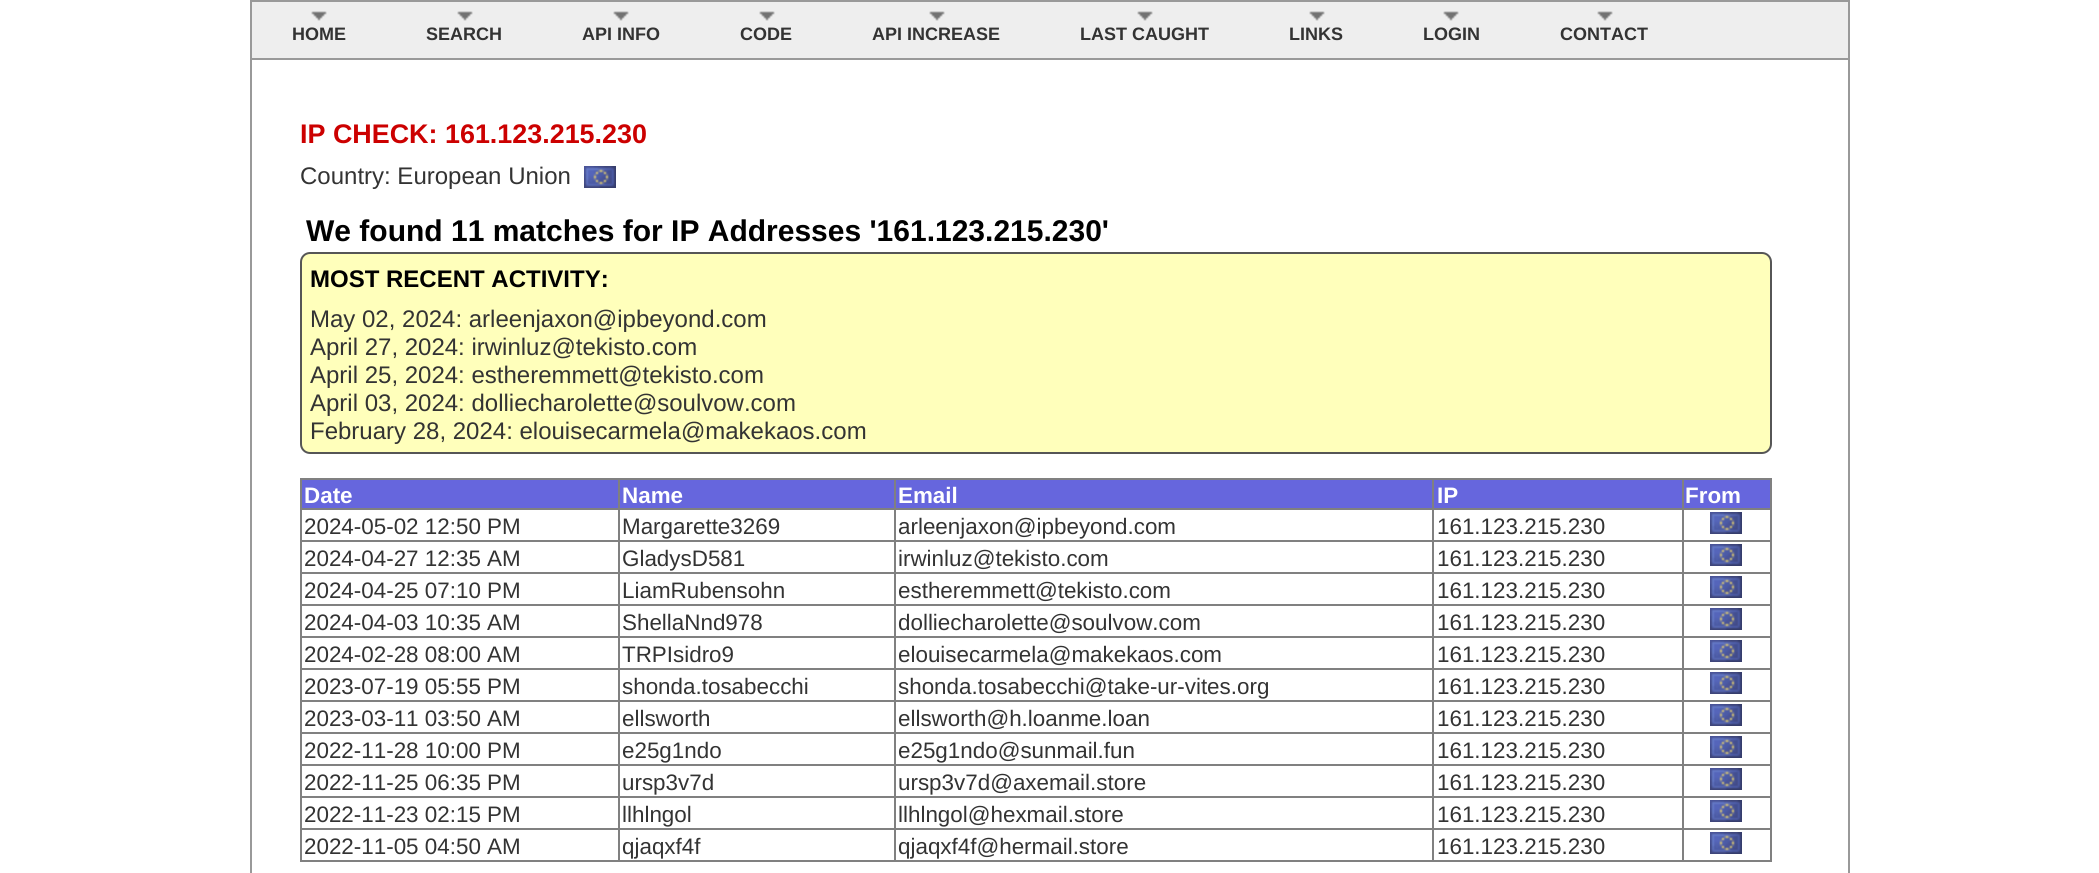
import math
import cairo

surface = cairo.ImageSurface(cairo.FORMAT_RGB24, 2099, 873)
cr = cairo.Context(surface)
options = cairo.FontOptions()
options.set_hint_metrics(cairo.HINT_METRICS_OFF)
options.set_hint_style(cairo.HINT_STYLE_NONE)
cr.set_font_options(options)
cr.set_miter_limit(4)


def rgb(code):
    cr.set_source_rgb(*(v / 255 for v in bytes.fromhex(code[-6:])))


def rrect(x, y, w, h, r):
    cr.new_sub_path()
    for i, (u, v) in enumerate([(x + w - r, y + h - r), (x + r, y + h - r), (x + r, y + r), (x + w - r, y + r)]):
        cr.arc(u, v, r, i * math.pi / 2, (i + 1) * math.pi / 2)
    cr.close_path()


def image(path, x, y, w, h):
    cr.save()
    cr.set_source_surface(cairo.ImageSurface.create_from_png(path), x, y)
    cr.rectangle(x, y, w, h)
    cr.fill()
    cr.restore()


rgb("#ffffff")
cr.paint()
rgb("#eeeeee")
cr.rectangle(251, 1, 1598, 58)
cr.fill_preserve()
rgb("#999999")
cr.stroke()
image("img/1.png", 311, 11, 16, 10)
image("img/1.png", 457, 11, 16, 10)
image("img/1.png", 613, 11, 16, 10)
image("img/1.png", 759, 11, 16, 10)
image("img/1.png", 929, 11, 16, 10)
image("img/1.png", 1137, 11, 16, 10)
image("img/1.png", 1309, 11, 16, 10)
image("img/1.png", 1443, 11, 16, 10)
image("img/1.png", 1597, 11, 16, 10)
cr.rectangle(1848, 60, 2, 813)
cr.fill()
cr.rectangle(250, 60, 2, 813)
cr.fill()
image("img/2.png", 584, 166, 32, 22)
rgb("#ffffbb")
rrect(301, 253, 1470, 200, 9)
cr.fill_preserve()
rgb("#565656")
cr.stroke()
for x, y, w, h, color in [
    (300, 478, 1472, 2, "#808080"),
    (1770, 478, 2, 384, "#808080"),
    (300, 860, 1472, 2, "#808080"),
    (300, 478, 2, 384, "#808080"),
    (302, 480, 1468, 28, "#6666dd"),
    (1682, 508, 90, 2, "#808080"),
    (1682, 540, 90, 2, "#808080"),
    (1682, 572, 90, 2, "#808080"),
    (1682, 604, 90, 2, "#808080"),
    (1682, 636, 90, 2, "#808080"),
    (1682, 668, 90, 2, "#808080"),
    (1682, 700, 90, 2, "#808080"),
    (1682, 732, 90, 2, "#808080"),
    (1682, 764, 90, 2, "#808080"),
    (1682, 796, 90, 2, "#808080"),
    (1682, 828, 90, 2, "#808080"),
    (1682, 828, 2, 34, "#808080"),
    (1432, 828, 252, 2, "#808080"),
    (1682, 796, 2, 34, "#808080"),
    (1432, 796, 252, 2, "#808080"),
    (1682, 764, 2, 34, "#808080"),
    (1432, 764, 252, 2, "#808080"),
    (1682, 732, 2, 34, "#808080"),
    (1432, 732, 252, 2, "#808080"),
    (1682, 700, 2, 34, "#808080"),
    (1432, 700, 252, 2, "#808080"),
    (1682, 668, 2, 34, "#808080"),
    (1432, 668, 252, 2, "#808080"),
    (1682, 636, 2, 34, "#808080"),
    (1432, 636, 252, 2, "#808080"),
    (1682, 604, 2, 34, "#808080"),
    (1432, 604, 252, 2, "#808080"),
    (1682, 572, 2, 34, "#808080"),
    (1432, 572, 252, 2, "#808080"),
    (1682, 540, 2, 34, "#808080"),
    (1432, 540, 252, 2, "#808080"),
    (1682, 508, 2, 34, "#808080"),
    (1432, 508, 252, 2, "#808080"),
    (1432, 828, 2, 34, "#808080"),
    (894, 828, 540, 2, "#808080"),
    (1432, 796, 2, 34, "#808080"),
    (894, 796, 540, 2, "#808080"),
    (1432, 764, 2, 34, "#808080"),
    (894, 764, 540, 2, "#808080"),
    (1432, 732, 2, 34, "#808080"),
    (894, 732, 540, 2, "#808080"),
    (1432, 700, 2, 34, "#808080"),
    (894, 700, 540, 2, "#808080"),
    (1432, 668, 2, 34, "#808080"),
    (894, 668, 540, 2, "#808080"),
    (1432, 636, 2, 34, "#808080"),
    (894, 636, 540, 2, "#808080"),
    (1432, 604, 2, 34, "#808080"),
    (894, 604, 540, 2, "#808080"),
    (1432, 572, 2, 34, "#808080"),
    (894, 572, 540, 2, "#808080"),
    (1432, 540, 2, 34, "#808080"),
    (894, 540, 540, 2, "#808080"),
    (1432, 508, 2, 34, "#808080"),
    (894, 508, 540, 2, "#808080"),
    (894, 828, 2, 34, "#808080"),
    (618, 828, 278, 2, "#808080"),
    (894, 796, 2, 34, "#808080"),
    (618, 796, 278, 2, "#808080"),
    (894, 764, 2, 34, "#808080"),
    (618, 764, 278, 2, "#808080"),
    (894, 732, 2, 34, "#808080"),
    (618, 732, 278, 2, "#808080"),
    (894, 700, 2, 34, "#808080"),
    (618, 700, 278, 2, "#808080"),
    (894, 668, 2, 34, "#808080"),
    (618, 668, 278, 2, "#808080"),
    (894, 636, 2, 34, "#808080"),
    (618, 636, 278, 2, "#808080"),
    (894, 604, 2, 34, "#808080"),
    (618, 604, 278, 2, "#808080"),
    (894, 572, 2, 34, "#808080"),
    (618, 572, 278, 2, "#808080"),
    (894, 540, 2, 34, "#808080"),
    (618, 540, 278, 2, "#808080"),
    (894, 508, 2, 34, "#808080"),
    (618, 508, 278, 2, "#808080"),
    (618, 828, 2, 34, "#808080"),
    (300, 828, 320, 2, "#808080"),
    (618, 796, 2, 34, "#808080"),
    (300, 796, 320, 2, "#808080"),
    (618, 764, 2, 34, "#808080"),
    (300, 764, 320, 2, "#808080"),
    (618, 732, 2, 34, "#808080"),
    (300, 732, 320, 2, "#808080"),
    (618, 700, 2, 34, "#808080"),
    (300, 700, 320, 2, "#808080"),
    (618, 668, 2, 34, "#808080"),
    (300, 668, 320, 2, "#808080"),
    (618, 636, 2, 34, "#808080"),
    (300, 636, 320, 2, "#808080"),
    (618, 604, 2, 34, "#808080"),
    (300, 604, 320, 2, "#808080"),
    (618, 572, 2, 34, "#808080"),
    (300, 572, 320, 2, "#808080"),
    (618, 540, 2, 34, "#808080"),
    (300, 540, 320, 2, "#808080"),
    (618, 508, 2, 34, "#808080"),
    (300, 508, 320, 2, "#808080"),
    (618, 478, 2, 32, "#808080"),
    (894, 478, 2, 32, "#808080"),
    (1432, 478, 2, 32, "#808080"),
    (1682, 478, 2, 32, "#808080"),
]:
    rgb(color)
    cr.rectangle(x, y, w, h)
    cr.fill()
image("img/2.png", 1710, 512, 32, 22)
image("img/2.png", 1710, 544, 32, 22)
image("img/2.png", 1710, 576, 32, 22)
image("img/2.png", 1710, 608, 32, 22)
image("img/2.png", 1710, 640, 32, 22)
image("img/2.png", 1710, 672, 32, 22)
image("img/2.png", 1710, 704, 32, 22)
image("img/2.png", 1710, 736, 32, 22)
image("img/2.png", 1710, 768, 32, 22)
image("img/2.png", 1710, 800, 32, 22)
image("img/2.png", 1710, 832, 32, 22)
cr.select_font_face("Liberation Sans", cairo.FONT_SLANT_NORMAL, cairo.FONT_WEIGHT_BOLD)
cr.set_font_size(18)
rgb("#333333")
for x, y, s in [
    (292, 40, "HOME"),
    (426, 40, "SEARCH"),
    (582, 40, "API INFO"),
    (740, 40, "CODE"),
    (872, 40, "API INCREASE"),
    (1080, 40, "LAST CAUGHT"),
    (1289, 40, "LINKS"),
    (1423, 40, "LOGIN"),
    (1560, 40, "CONTACT"),
]:
    cr.move_to(x, y)
    cr.show_text(s)
cr.set_font_size(26.9)
rgb("#cc0000")
cr.move_to(300, 143)
cr.show_text("IP CHECK: 161.123.215.230")
cr.select_font_face("Liberation Sans")
cr.set_font_size(24)
rgb("#333333")
cr.move_to(300, 184)
cr.show_text("Country: European Union")
cr.select_font_face("Liberation Sans", cairo.FONT_SLANT_NORMAL, cairo.FONT_WEIGHT_BOLD)
cr.set_font_size(30)
rgb("#000000")
cr.move_to(306, 241)
cr.show_text("We found 11 matches for IP Addresses '161.123.215.230'")
cr.set_font_size(24)
cr.move_to(310, 287)
cr.show_text("MOST RECENT ACTIVITY:")
cr.select_font_face("Liberation Sans")
rgb("#333333")
for x, y, s in [
    (310, 327, "May 02, 2024: arleenjaxon@ipbeyond.com"),
    (310, 355, "April 27, 2024: irwinluz@tekisto.com"),
    (310, 383, "April 25, 2024: estheremmett@tekisto.com"),
    (310, 411, "April 03, 2024: dolliecharolette@soulvow.com"),
    (310, 439, "February 28, 2024: elouisecarmela@makekaos.com"),
]:
    cr.move_to(x, y)
    cr.show_text(s)
cr.select_font_face("Liberation Sans", cairo.FONT_SLANT_NORMAL, cairo.FONT_WEIGHT_BOLD)
cr.set_font_size(22.4)
rgb("#ffffff")
for x, y, s in [
    (304, 503, "Date"),
    (622, 503, "Name"),
    (898, 503, "Email"),
    (1437, 503, "IP"),
    (1685, 503, "From"),
]:
    cr.move_to(x, y)
    cr.show_text(s)
cr.select_font_face("Liberation Sans")
rgb("#333333")
for x, y, s in [
    (304, 534, "2024-05-02 12:50 PM"),
    (622, 534, "Margarette3269"),
    (898, 534, "arleenjaxon@ipbeyond.com"),
    (1437, 534, "161.123.215.230"),
    (304, 566, "2024-04-27 12:35 AM"),
    (622, 566, "GladysD581"),
    (898, 566, "irwinluz@tekisto.com"),
    (1437, 566, "161.123.215.230"),
    (304, 598, "2024-04-25 07:10 PM"),
    (622, 598, "LiamRubensohn"),
    (898, 598, "estheremmett@tekisto.com"),
    (1437, 598, "161.123.215.230"),
    (304, 630, "2024-04-03 10:35 AM"),
    (622, 630, "ShellaNnd978"),
    (898, 630, "dolliecharolette@soulvow.com"),
    (1437, 630, "161.123.215.230"),
    (304, 662, "2024-02-28 08:00 AM"),
    (622, 662, "TRPIsidro9"),
    (898, 662, "elouisecarmela@makekaos.com"),
    (1437, 662, "161.123.215.230"),
    (304, 694, "2023-07-19 05:55 PM"),
    (622, 694, "shonda.tosabecchi"),
    (898, 694, "shonda.tosabecchi@take-ur-vites.org"),
    (1437, 694, "161.123.215.230"),
    (304, 726, "2023-03-11 03:50 AM"),
    (622, 726, "ellsworth"),
    (898, 726, "ellsworth@h.loanme.loan"),
    (1437, 726, "161.123.215.230"),
    (304, 758, "2022-11-28 10:00 PM"),
    (622, 758, "e25g1ndo"),
    (898, 758, "e25g1ndo@sunmail.fun"),
    (1437, 758, "161.123.215.230"),
    (304, 790, "2022-11-25 06:35 PM"),
    (622, 790, "ursp3v7d"),
    (898, 790, "ursp3v7d@axemail.store"),
    (1437, 790, "161.123.215.230"),
    (304, 822, "2022-11-23 02:15 PM"),
    (622, 822, "llhlngol"),
    (898, 822, "llhlngol@hexmail.store"),
    (1437, 822, "161.123.215.230"),
    (304, 854, "2022-11-05 04:50 AM"),
    (622, 854, "qjaqxf4f"),
    (898, 854, "qjaqxf4f@hermail.store"),
    (1437, 854, "161.123.215.230"),
]:
    cr.move_to(x, y)
    cr.show_text(s)
surface.write_to_png("page.png")
